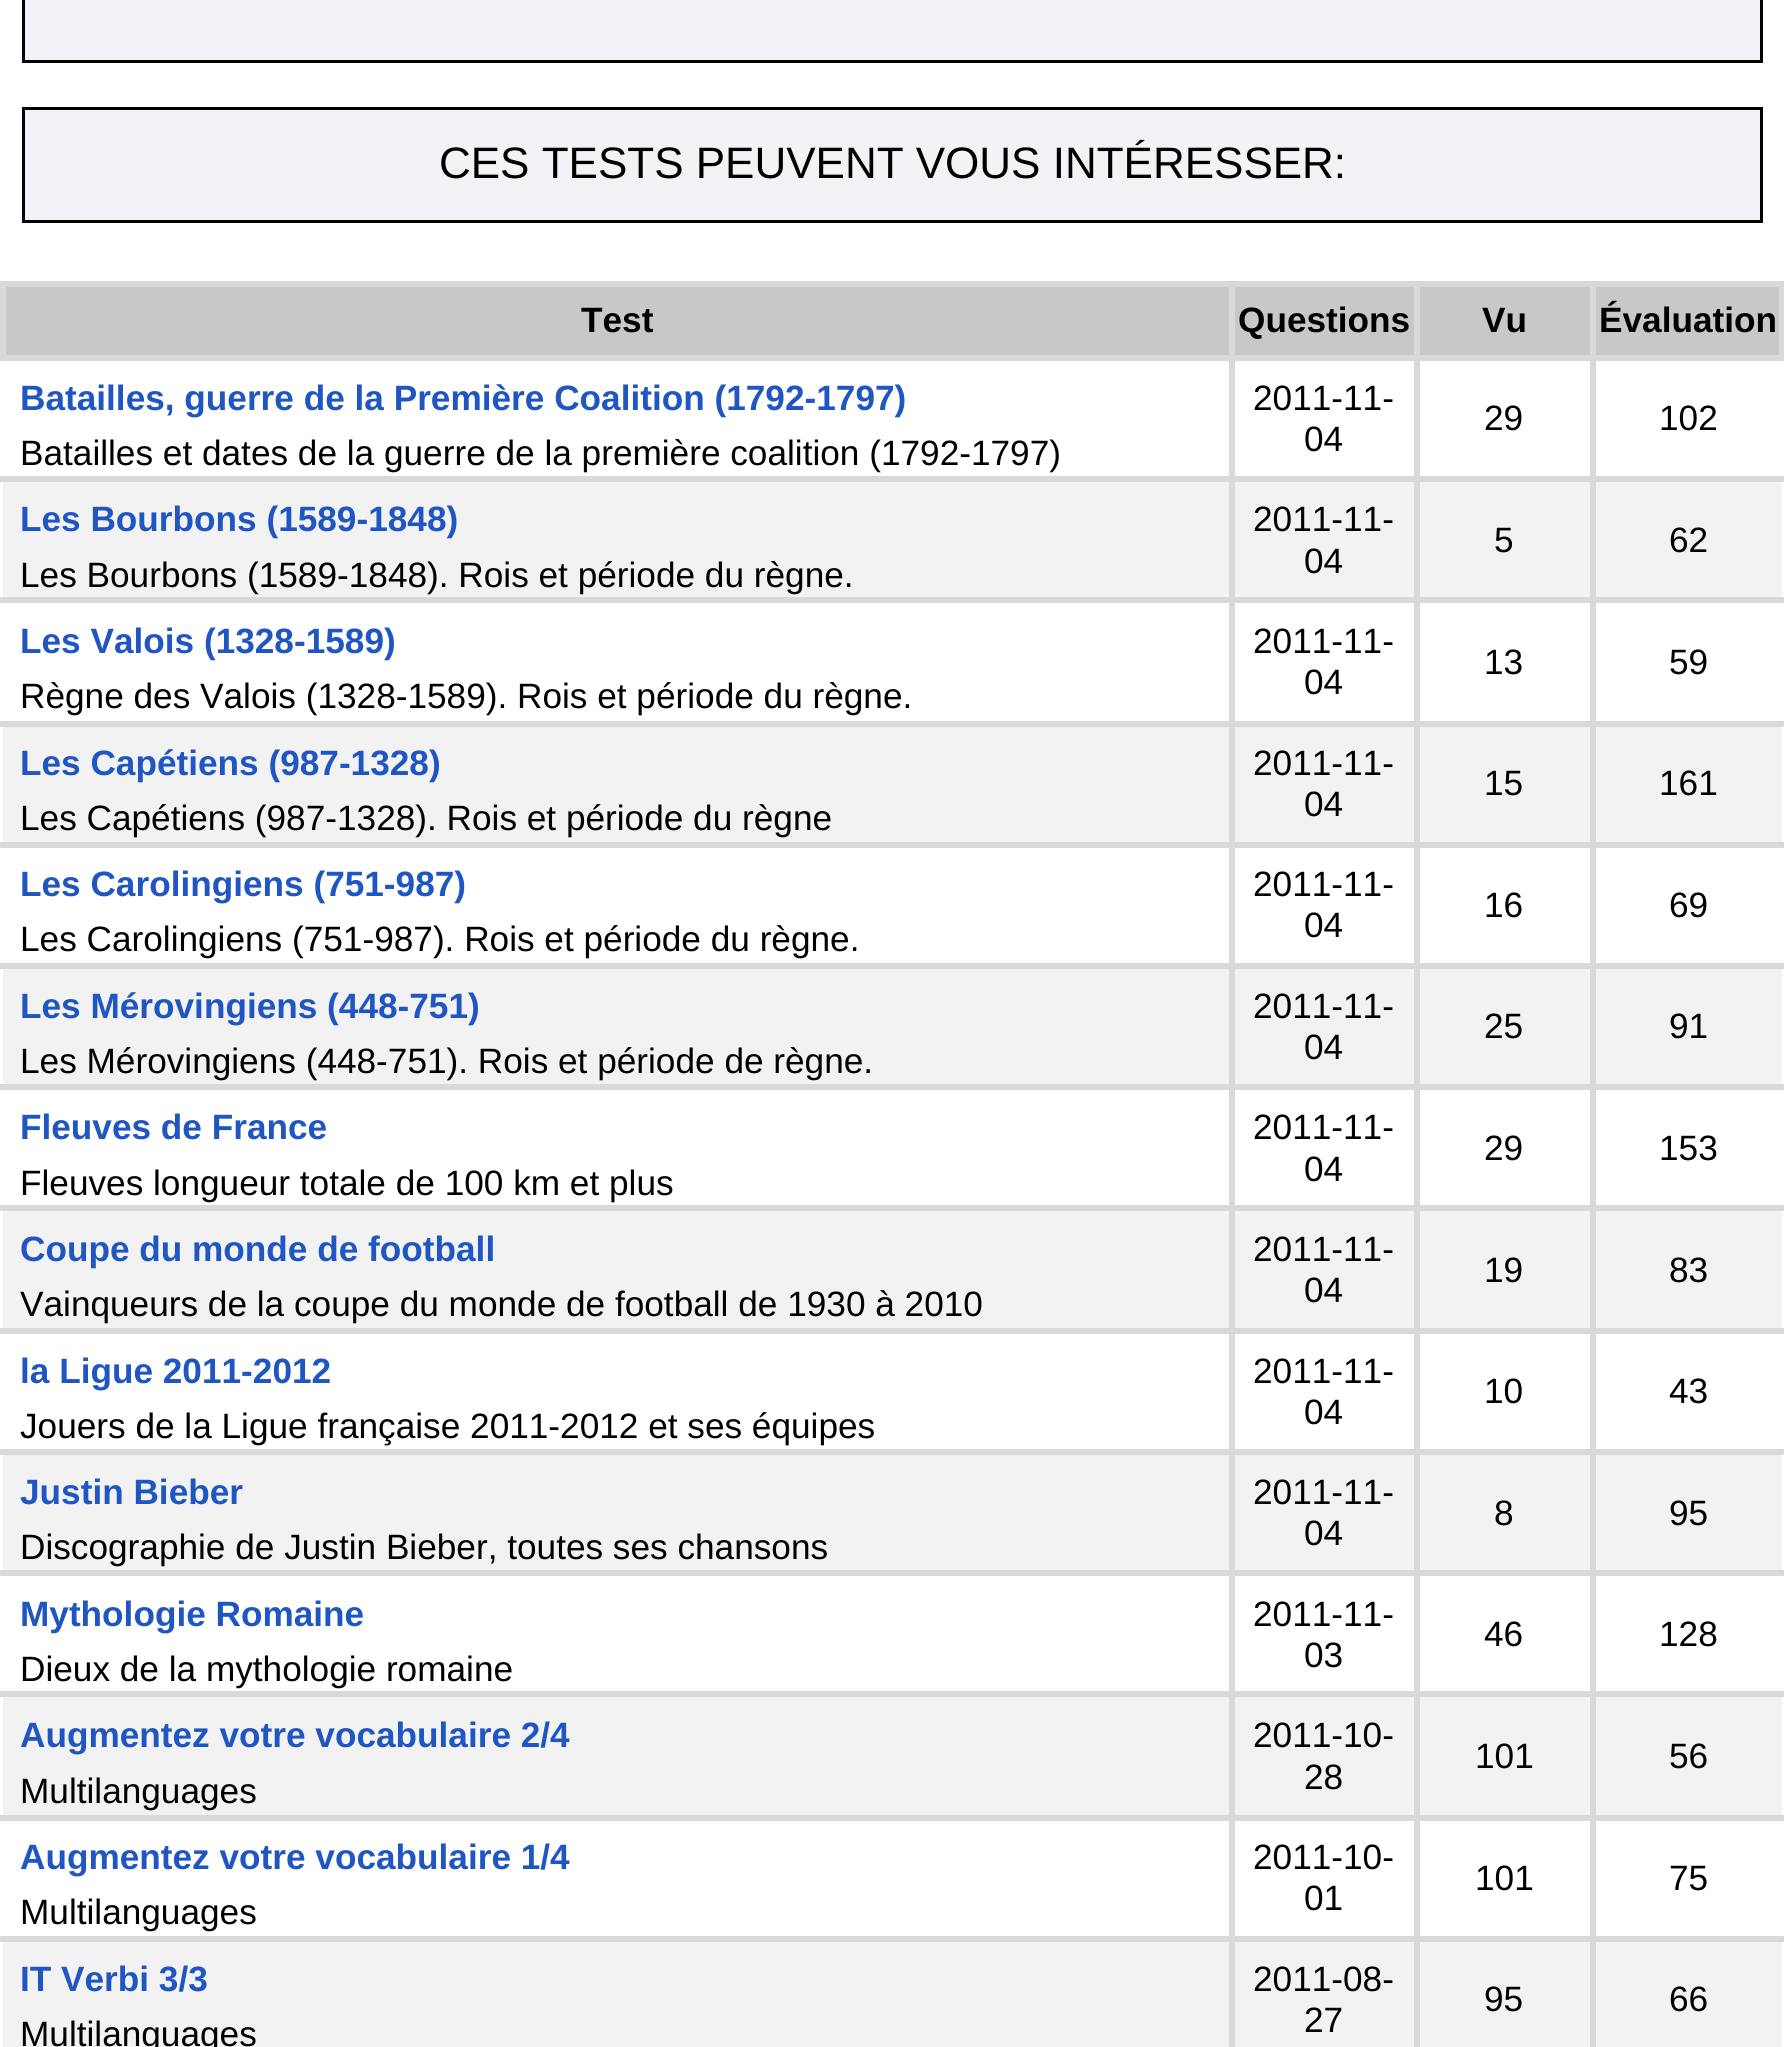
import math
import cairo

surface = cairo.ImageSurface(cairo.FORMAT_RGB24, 1784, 2047)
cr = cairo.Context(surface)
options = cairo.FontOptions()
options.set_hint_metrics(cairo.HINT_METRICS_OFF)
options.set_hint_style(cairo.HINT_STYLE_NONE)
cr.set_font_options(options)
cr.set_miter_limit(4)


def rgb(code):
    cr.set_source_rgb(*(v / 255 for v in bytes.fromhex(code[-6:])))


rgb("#ffffff")
cr.paint()
rgb("#f2f3f7")
cr.rectangle(23.5, -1.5, 1738, 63)
cr.fill_preserve()
rgb("#000000")
cr.set_line_width(3)
cr.stroke()
rgb("#f2f3f7")
cr.rectangle(23.5, 108.5, 1738, 113)
cr.fill_preserve()
rgb("#000000")
cr.stroke()
for x, y, w, h, color in [
    (6, 287, 1223, 68, "#c9c8c8"),
    (1590, 281, 194, 6, "#dad8d8"),
    (1590, 355, 194, 6, "#dad8d8"),
    (1590, 476, 194, 6, "#dad8d8"),
    (3, 482, 1779, 115, "#f2f2f2"),
    (1590, 597, 194, 6, "#dad8d8"),
    (1590, 721, 194, 6, "#dad8d8"),
    (3, 727, 1779, 115, "#f2f2f2"),
    (1590, 842, 194, 6, "#dad8d8"),
    (1590, 963, 194, 6, "#dad8d8"),
    (3, 969, 1779, 115, "#f2f2f2"),
    (1590, 1084, 194, 6, "#dad8d8"),
    (1590, 1205, 194, 6, "#dad8d8"),
    (3, 1211, 1779, 117, "#f2f2f2"),
    (1590, 1328, 194, 6, "#dad8d8"),
    (1590, 1449, 194, 6, "#dad8d8"),
    (3, 1455, 1779, 115, "#f2f2f2"),
    (1590, 1570, 194, 6, "#dad8d8"),
    (1590, 1691, 194, 6, "#dad8d8"),
    (3, 1697, 1779, 118, "#f2f2f2"),
    (1590, 1815, 194, 6, "#dad8d8"),
    (1590, 1936, 194, 6, "#dad8d8"),
    (3, 1942, 1779, 105, "#f2f2f2"),
    (1590, 1936, 6, 111, "#dad8d8"),
    (1414, 1936, 181, 6, "#dad8d8"),
    (1590, 1815, 6, 127, "#dad8d8"),
    (1414, 1815, 181, 6, "#dad8d8"),
    (1590, 1691, 6, 130, "#dad8d8"),
    (1414, 1691, 181, 6, "#dad8d8"),
    (1590, 1570, 6, 127, "#dad8d8"),
    (1414, 1570, 181, 6, "#dad8d8"),
    (1590, 1449, 6, 127, "#dad8d8"),
    (1414, 1449, 181, 6, "#dad8d8"),
    (1590, 1328, 6, 127, "#dad8d8"),
    (1414, 1328, 181, 6, "#dad8d8"),
    (1590, 1205, 6, 129, "#dad8d8"),
    (1414, 1205, 181, 6, "#dad8d8"),
    (1590, 1084, 6, 126, "#dad8d8"),
    (1414, 1084, 181, 6, "#dad8d8"),
    (1590, 963, 6, 126, "#dad8d8"),
    (1414, 963, 181, 6, "#dad8d8"),
    (1590, 842, 6, 126, "#dad8d8"),
    (1414, 842, 181, 6, "#dad8d8"),
    (1590, 721, 6, 126, "#dad8d8"),
    (1414, 721, 181, 6, "#dad8d8"),
    (1590, 597, 6, 129, "#dad8d8"),
    (1414, 597, 181, 6, "#dad8d8"),
    (1590, 476, 6, 126, "#dad8d8"),
    (1414, 476, 181, 6, "#dad8d8"),
    (1590, 355, 6, 126, "#dad8d8"),
    (1414, 355, 181, 6, "#dad8d8"),
    (1590, 281, 6, 79, "#dad8d8"),
    (1414, 281, 181, 6, "#dad8d8"),
    (1414, 1936, 6, 111, "#dad8d8"),
    (1229, 1936, 190, 6, "#dad8d8"),
    (1414, 1815, 6, 127, "#dad8d8"),
    (1229, 1815, 190, 6, "#dad8d8"),
    (1414, 1691, 6, 130, "#dad8d8"),
    (1229, 1691, 190, 6, "#dad8d8"),
    (1414, 1570, 6, 127, "#dad8d8"),
    (1229, 1570, 190, 6, "#dad8d8"),
    (1414, 1449, 6, 127, "#dad8d8"),
    (1229, 1449, 190, 6, "#dad8d8"),
    (1414, 1328, 6, 127, "#dad8d8"),
    (1229, 1328, 190, 6, "#dad8d8"),
    (1414, 1205, 6, 129, "#dad8d8"),
    (1229, 1205, 190, 6, "#dad8d8"),
    (1414, 1084, 6, 126, "#dad8d8"),
    (1229, 1084, 190, 6, "#dad8d8"),
    (1414, 963, 6, 126, "#dad8d8"),
    (1229, 963, 190, 6, "#dad8d8"),
    (1414, 842, 6, 126, "#dad8d8"),
    (1229, 842, 190, 6, "#dad8d8"),
    (1414, 721, 6, 126, "#dad8d8"),
    (1229, 721, 190, 6, "#dad8d8"),
    (1414, 597, 6, 129, "#dad8d8"),
    (1229, 597, 190, 6, "#dad8d8"),
    (1414, 476, 6, 126, "#dad8d8"),
    (1229, 476, 190, 6, "#dad8d8"),
    (1414, 355, 6, 126, "#dad8d8"),
    (1229, 355, 190, 6, "#dad8d8"),
    (1414, 281, 6, 79, "#dad8d8"),
    (1229, 281, 190, 6, "#dad8d8"),
    (1229, 1936, 6, 111, "#dad8d8"),
    (0, 1936, 1235, 6, "#dad8d8"),
    (1229, 1815, 6, 127, "#dad8d8"),
    (0, 1815, 1235, 6, "#dad8d8"),
    (1229, 1691, 6, 130, "#dad8d8"),
    (0, 1691, 1235, 6, "#dad8d8"),
    (1229, 1570, 6, 127, "#dad8d8"),
    (0, 1570, 1235, 6, "#dad8d8"),
    (1229, 1449, 6, 127, "#dad8d8"),
    (0, 1449, 1235, 6, "#dad8d8"),
    (1229, 1328, 6, 127, "#dad8d8"),
    (0, 1328, 1235, 6, "#dad8d8"),
    (1229, 1205, 6, 129, "#dad8d8"),
    (0, 1205, 1235, 6, "#dad8d8"),
    (1229, 1084, 6, 126, "#dad8d8"),
    (0, 1084, 1235, 6, "#dad8d8"),
    (1229, 963, 6, 126, "#dad8d8"),
    (0, 963, 1235, 6, "#dad8d8"),
    (1229, 842, 6, 126, "#dad8d8"),
    (0, 842, 1235, 6, "#dad8d8"),
    (1229, 721, 6, 126, "#dad8d8"),
    (0, 721, 1235, 6, "#dad8d8"),
    (1229, 597, 6, 129, "#dad8d8"),
    (0, 597, 1235, 6, "#dad8d8"),
    (1229, 476, 6, 126, "#dad8d8"),
    (0, 476, 1235, 6, "#dad8d8"),
    (1229, 355, 6, 126, "#dad8d8"),
    (0, 355, 1235, 6, "#dad8d8"),
    (1229, 281, 6, 79, "#dad8d8"),
    (0, 281, 1235, 6, "#dad8d8"),
    (0, 281, 6, 79, "#dad8d8"),
    (1235, 287, 179, 68, "#c9c8c8"),
    (1420, 287, 170, 68, "#c9c8c8"),
    (1596, 287, 183, 68, "#c9c8c8"),
    (1779, 281, 5, 79, "#dad8d8"),
]:
    rgb(color)
    cr.rectangle(x, y, w, h)
    cr.fill()
cr.select_font_face("Liberation Sans")
cr.set_font_size(44)
rgb("#000000")
cr.move_to(439, 178)
cr.show_text("CES TESTS PEUVENT VOUS INTÉRESSER:")
cr.select_font_face("Liberation Sans", cairo.FONT_SLANT_NORMAL, cairo.FONT_WEIGHT_BOLD)
cr.set_font_size(35.2)
for x, y, s in [
    (581, 332, "Test"),
    (1238, 332, "Questions"),
    (1482, 332, "Vu"),
    (1599, 332, "Évaluation"),
]:
    cr.move_to(x, y)
    cr.show_text(s)
rgb("#1f56c2")
cr.move_to(20, 410)
cr.show_text("Batailles, guerre de la Première Coalition (1792-1797)")
cr.select_font_face("Liberation Sans")
rgb("#000000")
for x, y, s in [
    (20, 465, "Batailles et dates de la guerre de la première coalition (1792-1797)"),
    (1253, 410, "2011-11-"),
    (1304, 451, "04"),
    (1484, 430, "29"),
    (1659, 430, "102"),
]:
    cr.move_to(x, y)
    cr.show_text(s)
cr.select_font_face("Liberation Sans", cairo.FONT_SLANT_NORMAL, cairo.FONT_WEIGHT_BOLD)
rgb("#1f56c2")
cr.move_to(20, 531)
cr.show_text("Les Bourbons (1589-1848)")
cr.select_font_face("Liberation Sans")
rgb("#000000")
for x, y, s in [
    (20, 587, "Les Bourbons (1589-1848). Rois et période du règne."),
    (1253, 531, "2011-11-"),
    (1304, 573, "04"),
    (1494, 552, "5"),
    (1669, 552, "62"),
]:
    cr.move_to(x, y)
    cr.show_text(s)
cr.select_font_face("Liberation Sans", cairo.FONT_SLANT_NORMAL, cairo.FONT_WEIGHT_BOLD)
rgb("#1f56c2")
cr.move_to(20, 653)
cr.show_text("Les Valois (1328-1589)")
cr.select_font_face("Liberation Sans")
rgb("#000000")
for x, y, s in [
    (20, 708, "Règne des Valois (1328-1589). Rois et période du règne."),
    (1253, 653, "2011-11-"),
    (1304, 694, "04"),
    (1484, 674, "13"),
    (1669, 674, "59"),
]:
    cr.move_to(x, y)
    cr.show_text(s)
cr.select_font_face("Liberation Sans", cairo.FONT_SLANT_NORMAL, cairo.FONT_WEIGHT_BOLD)
rgb("#1f56c2")
cr.move_to(20, 775)
cr.show_text("Les Capétiens (987-1328)")
cr.select_font_face("Liberation Sans")
rgb("#000000")
for x, y, s in [
    (20, 830, "Les Capétiens (987-1328). Rois et période du règne"),
    (1253, 775, "2011-11-"),
    (1304, 816, "04"),
    (1484, 795, "15"),
    (1659, 795, "161"),
]:
    cr.move_to(x, y)
    cr.show_text(s)
cr.select_font_face("Liberation Sans", cairo.FONT_SLANT_NORMAL, cairo.FONT_WEIGHT_BOLD)
rgb("#1f56c2")
cr.move_to(20, 896)
cr.show_text("Les Carolingiens (751-987)")
cr.select_font_face("Liberation Sans")
rgb("#000000")
for x, y, s in [
    (20, 951, "Les Carolingiens (751-987). Rois et période du règne."),
    (1253, 896, "2011-11-"),
    (1304, 937, "04"),
    (1484, 917, "16"),
    (1669, 917, "69"),
]:
    cr.move_to(x, y)
    cr.show_text(s)
cr.select_font_face("Liberation Sans", cairo.FONT_SLANT_NORMAL, cairo.FONT_WEIGHT_BOLD)
rgb("#1f56c2")
cr.move_to(20, 1018)
cr.show_text("Les Mérovingiens (448-751)")
cr.select_font_face("Liberation Sans")
rgb("#000000")
for x, y, s in [
    (20, 1073, "Les Mérovingiens (448-751). Rois et période de règne."),
    (1253, 1018, "2011-11-"),
    (1304, 1059, "04"),
    (1484, 1038, "25"),
    (1669, 1038, "91"),
]:
    cr.move_to(x, y)
    cr.show_text(s)
cr.select_font_face("Liberation Sans", cairo.FONT_SLANT_NORMAL, cairo.FONT_WEIGHT_BOLD)
rgb("#1f56c2")
cr.move_to(20, 1139)
cr.show_text("Fleuves de France")
cr.select_font_face("Liberation Sans")
rgb("#000000")
for x, y, s in [
    (20, 1195, "Fleuves longueur totale de 100 km et plus"),
    (1253, 1139, "2011-11-"),
    (1304, 1181, "04"),
    (1484, 1160, "29"),
    (1659, 1160, "153"),
]:
    cr.move_to(x, y)
    cr.show_text(s)
cr.select_font_face("Liberation Sans", cairo.FONT_SLANT_NORMAL, cairo.FONT_WEIGHT_BOLD)
rgb("#1f56c2")
cr.move_to(20, 1261)
cr.show_text("Coupe du monde de football")
cr.select_font_face("Liberation Sans")
rgb("#000000")
for x, y, s in [
    (20, 1316, "Vainqueurs de la coupe du monde de football de 1930 à 2010"),
    (1253, 1261, "2011-11-"),
    (1304, 1302, "04"),
    (1484, 1282, "19"),
    (1669, 1282, "83"),
]:
    cr.move_to(x, y)
    cr.show_text(s)
cr.select_font_face("Liberation Sans", cairo.FONT_SLANT_NORMAL, cairo.FONT_WEIGHT_BOLD)
rgb("#1f56c2")
cr.move_to(20, 1383)
cr.show_text("la Ligue 2011-2012")
cr.select_font_face("Liberation Sans")
rgb("#000000")
for x, y, s in [
    (20, 1438, "Jouers de la Ligue française 2011-2012 et ses équipes"),
    (1253, 1383, "2011-11-"),
    (1304, 1424, "04"),
    (1484, 1403, "10"),
    (1669, 1403, "43"),
]:
    cr.move_to(x, y)
    cr.show_text(s)
cr.select_font_face("Liberation Sans", cairo.FONT_SLANT_NORMAL, cairo.FONT_WEIGHT_BOLD)
rgb("#1f56c2")
cr.move_to(20, 1504)
cr.show_text("Justin Bieber")
cr.select_font_face("Liberation Sans")
rgb("#000000")
for x, y, s in [
    (20, 1559, "Discographie de Justin Bieber, toutes ses chansons"),
    (1253, 1504, "2011-11-"),
    (1304, 1545, "04"),
    (1494, 1525, "8"),
    (1669, 1525, "95"),
]:
    cr.move_to(x, y)
    cr.show_text(s)
cr.select_font_face("Liberation Sans", cairo.FONT_SLANT_NORMAL, cairo.FONT_WEIGHT_BOLD)
rgb("#1f56c2")
cr.move_to(20, 1626)
cr.show_text("Mythologie Romaine")
cr.select_font_face("Liberation Sans")
rgb("#000000")
for x, y, s in [
    (20, 1681, "Dieux de la mythologie romaine"),
    (1253, 1626, "2011-11-"),
    (1304, 1667, "03"),
    (1484, 1646, "46"),
    (1659, 1646, "128"),
]:
    cr.move_to(x, y)
    cr.show_text(s)
cr.select_font_face("Liberation Sans", cairo.FONT_SLANT_NORMAL, cairo.FONT_WEIGHT_BOLD)
rgb("#1f56c2")
cr.move_to(20, 1747)
cr.show_text("Augmentez votre vocabulaire 2/4")
cr.select_font_face("Liberation Sans")
rgb("#000000")
for x, y, s in [
    (20, 1803, "Multilanguages"),
    (1253, 1747, "2011-10-"),
    (1304, 1789, "28"),
    (1475, 1768, "101"),
    (1669, 1768, "56"),
]:
    cr.move_to(x, y)
    cr.show_text(s)
cr.select_font_face("Liberation Sans", cairo.FONT_SLANT_NORMAL, cairo.FONT_WEIGHT_BOLD)
rgb("#1f56c2")
cr.move_to(20, 1869)
cr.show_text("Augmentez votre vocabulaire 1/4")
cr.select_font_face("Liberation Sans")
rgb("#000000")
for x, y, s in [
    (20, 1924, "Multilanguages"),
    (1253, 1869, "2011-10-"),
    (1304, 1910, "01"),
    (1475, 1890, "101"),
    (1669, 1890, "75"),
]:
    cr.move_to(x, y)
    cr.show_text(s)
cr.select_font_face("Liberation Sans", cairo.FONT_SLANT_NORMAL, cairo.FONT_WEIGHT_BOLD)
rgb("#1f56c2")
cr.move_to(20, 1991)
cr.show_text("IT Verbi 3/3")
cr.select_font_face("Liberation Sans")
rgb("#000000")
for x, y, s in [
    (20, 2046, "Multilanguages"),
    (1253, 1991, "2011-08-"),
    (1304, 2032, "27"),
    (1484, 2011, "95"),
    (1669, 2011, "66"),
]:
    cr.move_to(x, y)
    cr.show_text(s)
surface.write_to_png("page.png")
